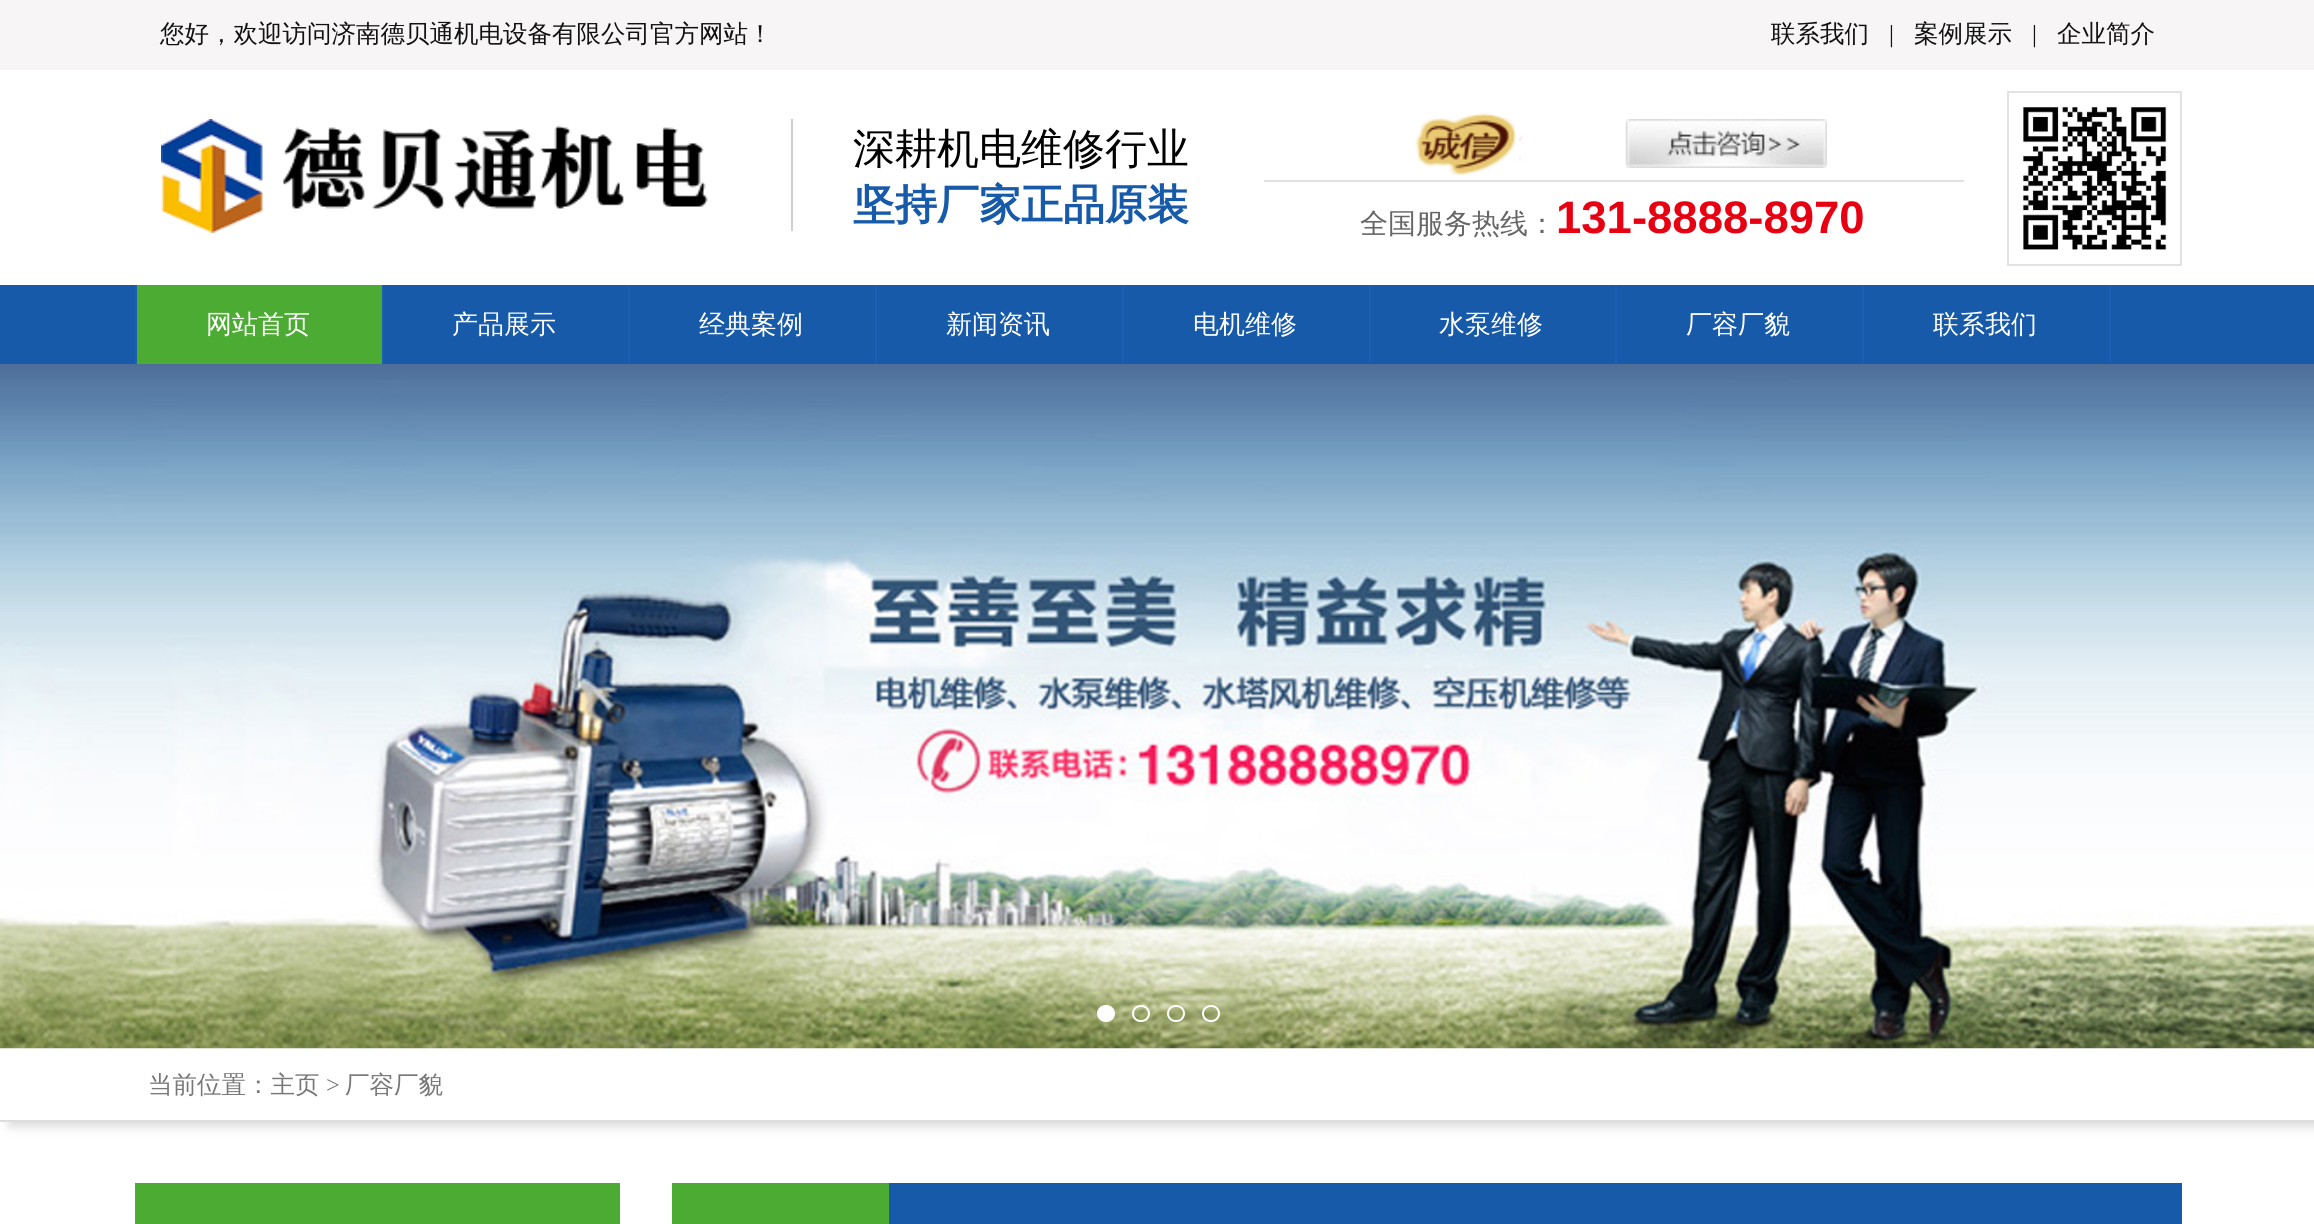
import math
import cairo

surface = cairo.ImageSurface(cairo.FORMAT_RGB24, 2314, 1224)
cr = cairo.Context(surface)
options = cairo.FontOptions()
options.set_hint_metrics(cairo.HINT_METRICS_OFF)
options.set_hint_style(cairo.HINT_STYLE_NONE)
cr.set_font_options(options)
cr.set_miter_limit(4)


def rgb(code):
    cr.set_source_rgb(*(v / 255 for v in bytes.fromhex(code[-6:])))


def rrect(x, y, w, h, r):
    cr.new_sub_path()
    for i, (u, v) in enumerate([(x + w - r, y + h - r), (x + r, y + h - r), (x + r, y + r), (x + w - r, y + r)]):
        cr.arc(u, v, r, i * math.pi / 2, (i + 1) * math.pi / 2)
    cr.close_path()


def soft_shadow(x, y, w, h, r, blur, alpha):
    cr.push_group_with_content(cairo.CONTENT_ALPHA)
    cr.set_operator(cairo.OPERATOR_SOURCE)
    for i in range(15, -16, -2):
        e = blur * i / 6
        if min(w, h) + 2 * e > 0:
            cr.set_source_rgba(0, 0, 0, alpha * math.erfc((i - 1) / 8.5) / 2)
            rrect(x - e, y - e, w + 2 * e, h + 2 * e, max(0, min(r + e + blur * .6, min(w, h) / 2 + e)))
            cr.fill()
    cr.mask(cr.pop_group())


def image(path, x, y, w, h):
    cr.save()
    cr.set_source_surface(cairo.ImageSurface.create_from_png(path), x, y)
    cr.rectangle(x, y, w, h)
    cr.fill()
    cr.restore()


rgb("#ffffff")
cr.paint()
rgb("#f7f5f5")
cr.rectangle(0, 0, 2314, 70)
cr.fill()
image("img/1.png", 161, 119, 547, 114)
rgb("#d0cece")
cr.rectangle(791, 119, 2, 112)
cr.fill()
image("img/2.png", 1414, 113, 110, 62)
image("img/3.png", 1625, 119, 202, 49)
cr.rectangle(2008, 92, 173, 173)
rgb("#e2e2e2")
cr.stroke()
image("img/4.png", 2023, 107, 144, 143)
for x, y, w, h, color in [
    (1264, 180, 700, 2, "#e2e2e2"),
    (0, 285, 2314, 79, "#175aa9"),
    (135, 285, 2, 79, "#1a5fb2"),
    (137, 285, 245, 79, "#4cab33"),
    (382, 285, 2, 79, "#1a5fb2"),
    (628, 285, 2, 79, "#1a5fb2"),
    (875, 285, 2, 79, "#1a5fb2"),
    (1122, 285, 2, 79, "#1a5fb2"),
    (1369, 285, 2, 79, "#1a5fb2"),
    (1615, 285, 2, 79, "#1a5fb2"),
    (1862, 285, 2, 79, "#1a5fb2"),
    (2109, 285, 2, 79, "#1a5fb2"),
]:
    rgb(color)
    cr.rectangle(x, y, w, h)
    cr.fill()
cr.save()
cr.set_fill_rule(cairo.FILL_RULE_EVEN_ODD)
cr.new_path()
cr.move_to(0, 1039)
cr.line_to(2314, 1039)
cr.line_to(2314, 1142)
cr.line_to(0, 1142)
cr.close_path()
cr.move_to(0, 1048)
cr.line_to(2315, 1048)
cr.line_to(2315, 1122)
cr.line_to(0, 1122)
cr.close_path()
cr.clip()
rgb("#dddddd")
soft_shadow(9, 1054, 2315, 73, 0, 4.5, 1)
cr.restore()
image("img/5.png", 0, 364, 2314, 685)
rgb("#ffffff")
rrect(1098, 1006, 16, 15, 7.5)
cr.fill_preserve()
cr.stroke()
rrect(1133, 1006, 16, 15, 7.5)
cr.stroke()
rrect(1168, 1006, 16, 15, 7.5)
cr.stroke()
rrect(1203, 1006, 16, 15, 7.5)
cr.stroke()
for x, y, w, h, color in [
    (0, 1120, 2314, 2, "#dddddd"),
    (135, 1183, 485, 41, "#4cab33"),
    (889, 1183, 1293, 41, "#175aa9"),
    (672, 1183, 217, 41, "#4cab33"),
]:
    rgb(color)
    cr.rectangle(x, y, w, h)
    cr.fill()
cr.select_font_face("WenQuanYi Zen Hei Medium")
cr.set_font_size(24.5)
rgb("#111111")
cr.move_to(160, 42)
cr.show_text("您好，欢迎访问济南德贝通机电设备有限公司官方网站！")
cr.move_to(1771, 42)
cr.show_text("联系我们")
cr.select_font_face("Liberation Serif")
cr.move_to(1889, 42)
cr.show_text("|")
cr.select_font_face("WenQuanYi Zen Hei Medium")
cr.move_to(1914, 42)
cr.show_text("案例展示")
cr.select_font_face("Liberation Serif")
cr.move_to(2032, 42)
cr.show_text("|")
cr.select_font_face("WenQuanYi Zen Hei Medium")
cr.move_to(2057, 42)
cr.show_text("企业简介")
cr.set_font_size(42)
rgb("#000000")
cr.move_to(853, 163)
cr.show_text("深耕机电维修行业")
cr.select_font_face("WenQuanYi Zen Hei", cairo.FONT_SLANT_NORMAL, cairo.FONT_WEIGHT_BOLD)
rgb("#175aa9")
cr.move_to(853, 219)
cr.show_text("坚持厂家正品原装")
cr.select_font_face("WenQuanYi Zen Hei Medium")
cr.set_font_size(28)
rgb("#666666")
cr.move_to(1360, 233)
cr.show_text("全国服务热线：")
cr.select_font_face("Liberation Sans", cairo.FONT_SLANT_NORMAL, cairo.FONT_WEIGHT_BOLD)
cr.set_font_size(45.5)
rgb("#e70012")
cr.move_to(1556, 233)
cr.show_text("131-8888-8970")
cr.select_font_face("WenQuanYi Zen Hei Medium")
cr.set_font_size(26)
rgb("#ffffff")
for x, y, s in [
    (206, 333, "网站首页"),
    (452, 333, "产品展示"),
    (699, 333, "经典案例"),
    (946, 333, "新闻资讯"),
    (1193, 333, "电机维修"),
    (1439, 333, "水泵维修"),
    (1686, 333, "厂容厂貌"),
    (1933, 333, "联系我们"),
]:
    cr.move_to(x, y)
    cr.show_text(s)
cr.set_font_size(24.5)
rgb("#777777")
cr.move_to(148, 1093)
cr.show_text("当前位置：主页")
cr.select_font_face("Liberation Serif")
cr.move_to(326, 1093)
cr.show_text(">")
cr.select_font_face("WenQuanYi Zen Hei Medium")
cr.move_to(345, 1093)
cr.show_text("厂容厂貌")
surface.write_to_png("page.png")
